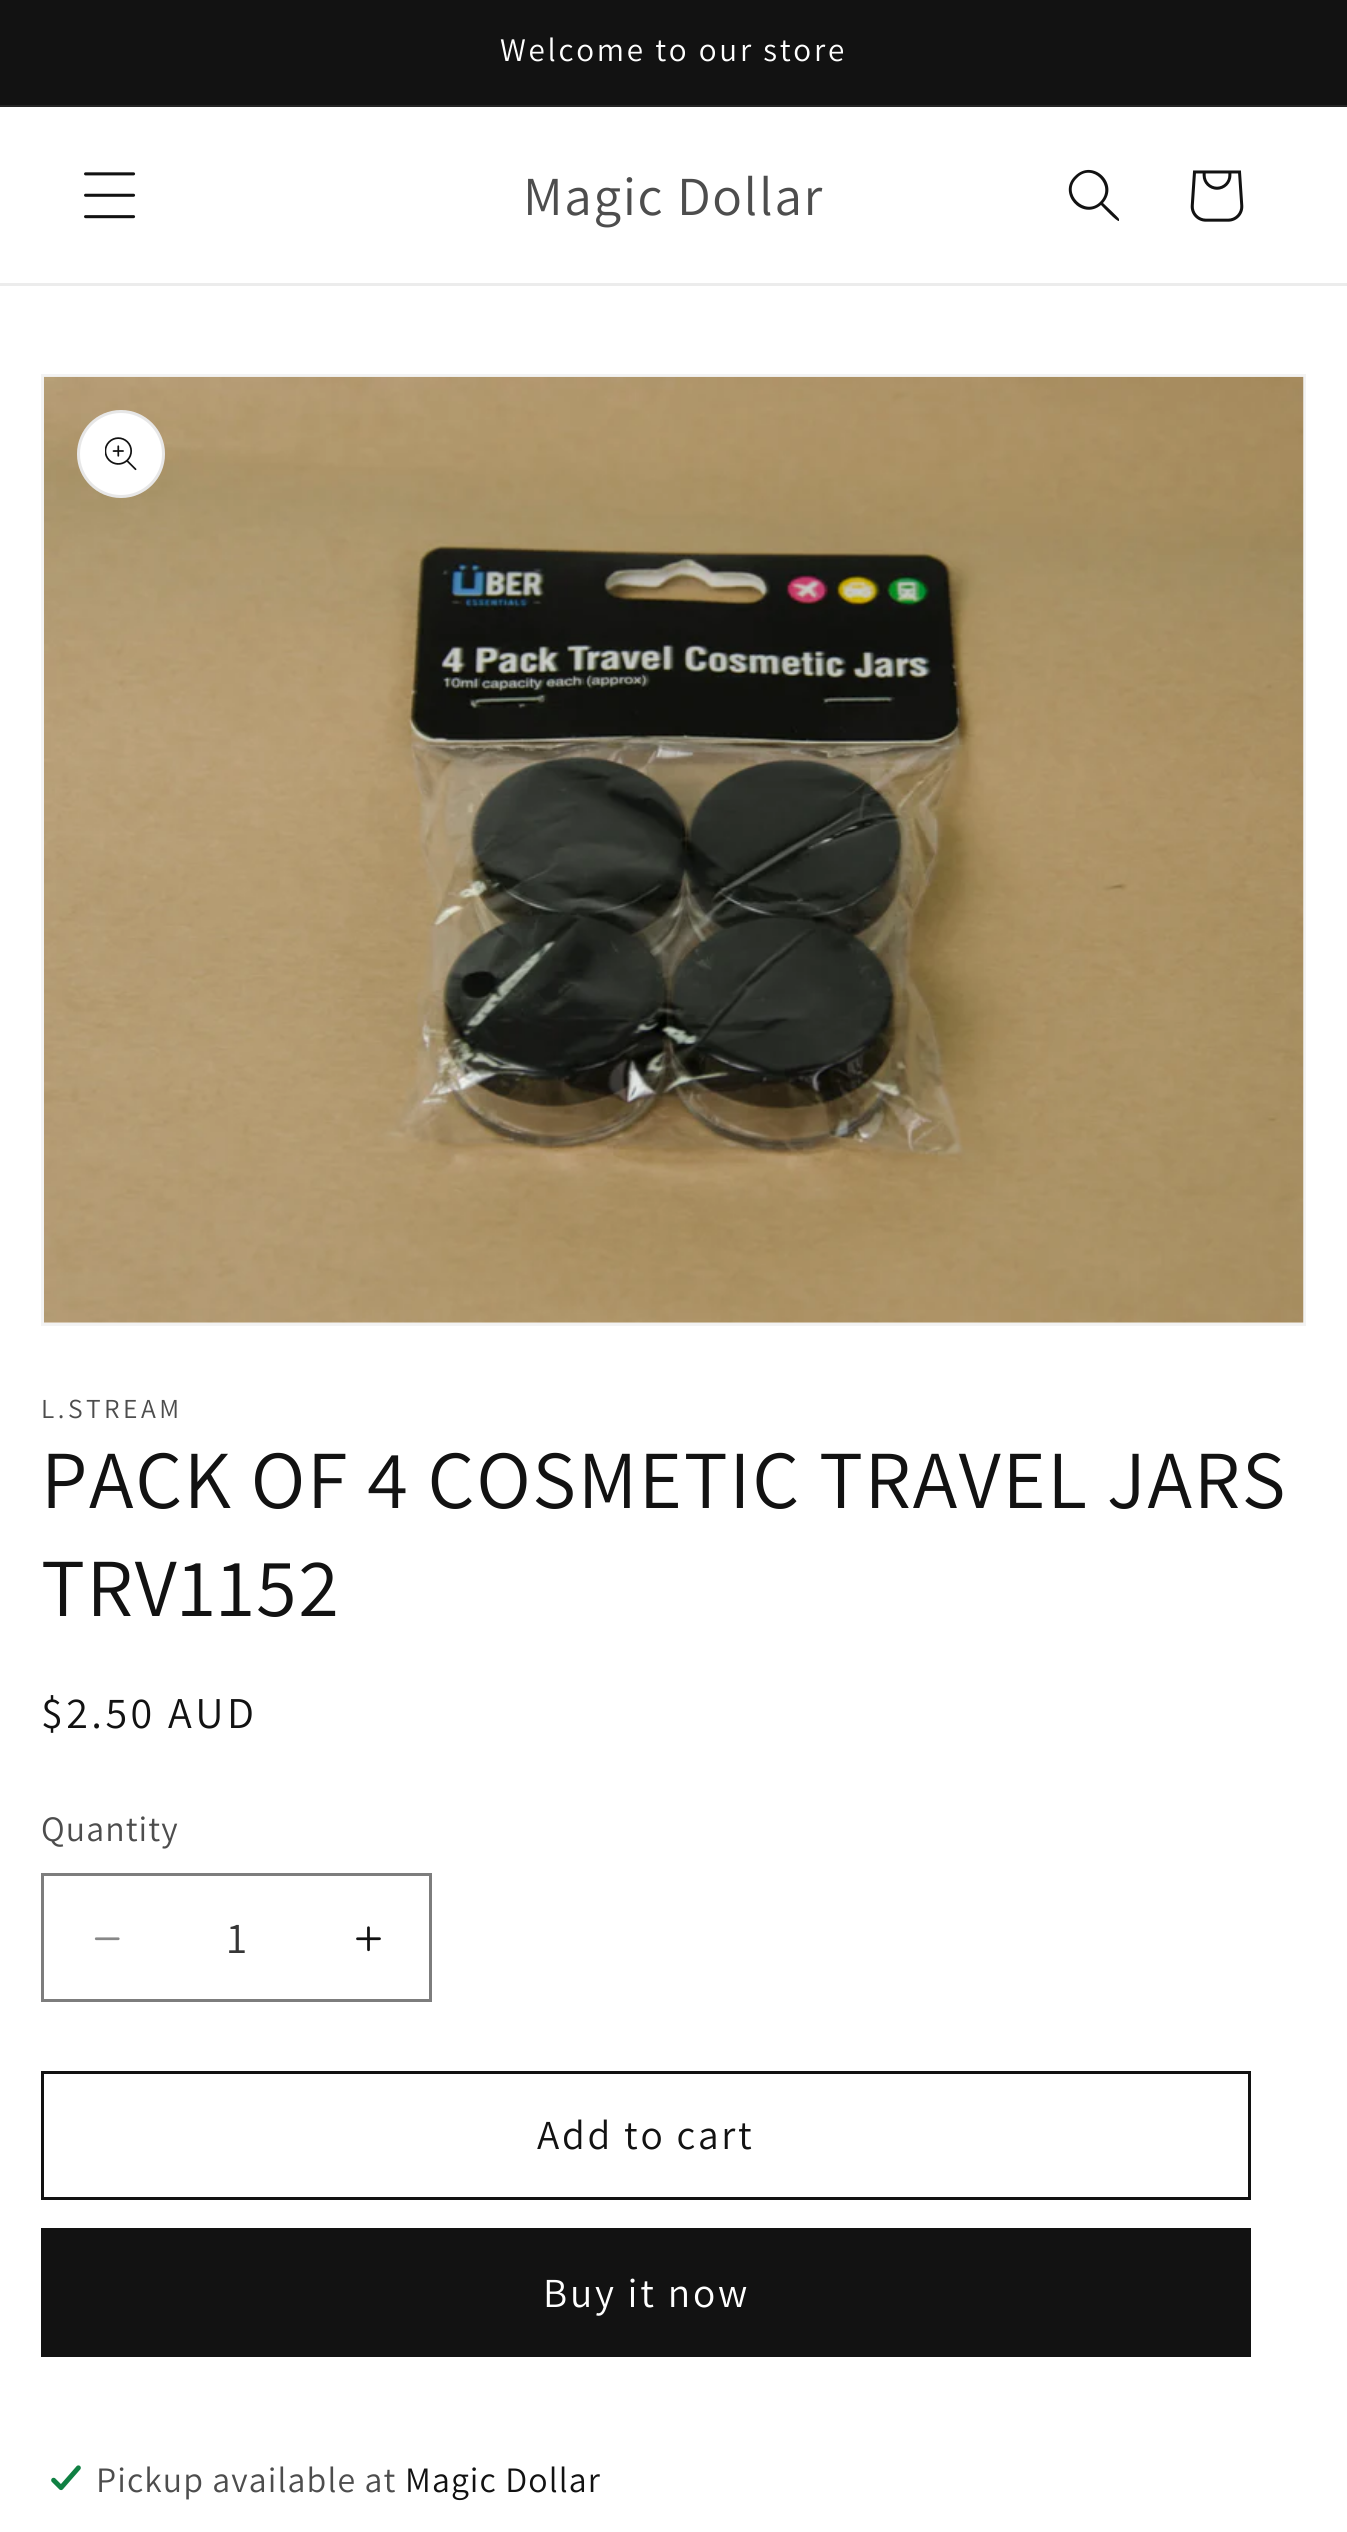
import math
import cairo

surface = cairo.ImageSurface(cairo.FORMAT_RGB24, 1347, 2532)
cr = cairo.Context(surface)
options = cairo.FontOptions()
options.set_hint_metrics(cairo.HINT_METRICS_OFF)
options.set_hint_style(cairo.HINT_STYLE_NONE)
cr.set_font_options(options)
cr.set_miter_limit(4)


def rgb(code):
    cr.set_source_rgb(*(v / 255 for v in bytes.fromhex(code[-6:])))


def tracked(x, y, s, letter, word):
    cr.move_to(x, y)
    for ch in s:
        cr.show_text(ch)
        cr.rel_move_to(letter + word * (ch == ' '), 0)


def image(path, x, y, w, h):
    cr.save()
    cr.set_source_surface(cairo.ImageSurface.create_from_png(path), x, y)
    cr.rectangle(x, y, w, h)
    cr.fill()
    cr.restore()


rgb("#ffffff")
cr.paint()
for x, y, w, h, color in [
    (0, 0, 1347, 105, "#121212"),
    (0, 105, 1347, 2, "#252525"),
    (0, 283, 1347, 3, "#ececec"),
]:
    rgb(color)
    cr.rectangle(x, y, w, h)
    cr.fill()
image("img/1.png", 84, 172, 52, 47)
rgb("#121212")
cr.set_fill_rule(cairo.FILL_RULE_EVEN_ODD)
cr.new_path()
cr.move_to(1100, 202)
cr.curve_to(1085, 217, 1061, 193, 1077, 178)
cr.curve_to(1092, 162, 1116, 186, 1100, 202)
cr.close_path()
cr.move_to(1101, 205)
cr.curve_to(1082, 221, 1057, 193, 1075, 176)
cr.curve_to(1093, 158, 1120, 184, 1103, 203)
cr.curve_to(1105, 205, 1119, 218, 1119, 219)
cr.line_to(1119, 221)
cr.curve_to(1117, 222, 1103, 207, 1101, 205)
cr.close_path()
cr.fill()
image("img/2.png", 1190, 170, 54, 52)
cr.rectangle(42.5, 375.5, 1262, 949)
rgb("#f3f3f3")
cr.set_line_width(3)
cr.stroke()
image("img/3.png", 44, 376, 1260, 947)
rgb("#ffffff")
cr.arc(121, 454, 44, 0, 2 * math.pi)
cr.fill()
cr.arc(121, 454, 42.5, 0, 2 * math.pi)
cr.set_source_rgba(0.071, 0.071, 0.071, 0.1)
cr.stroke()
image("img/4.png", 105, 437, 32, 34)
image("img/5.png", 94, 1937, 26, 4)
image("img/6.png", 356, 1926, 25, 26)
cr.rectangle(42.5, 1874.5, 388, 126)
rgb("#7d7d7d")
cr.stroke()
cr.rectangle(42.5, 2072.5, 1207, 126)
rgb("#121212")
cr.stroke()
cr.rectangle(41, 2228, 1210, 129)
cr.fill()
image("img/7.png", 51, 2465, 30, 26)
cr.select_font_face("Assistant")
cr.set_font_size(33)
rgb("#ffffff")
tracked(500, 61, "Welcome to our store", 2.75, 0)
cr.set_font_size(55)
rgb("#4d4d4d")
tracked(523, 215, "Magic Dollar", 1.65, 0)
cr.set_font_size(27.5)
tracked(41, 1418, "L.STREAM", 3.5, 0)
cr.set_font_size(82.5)
rgb("#121212")
tracked(41, 1508, "PACK OF 4 COSMETIC TRAVEL JARS", 1.65, 0)
tracked(41, 1616, "TRV1152", 1.65, 0)
cr.set_font_size(44)
tracked(41, 1728, "$2.50 AUD", 3.5, 0)
cr.set_font_size(35.75)
rgb("#4d4d4d")
tracked(41, 1841, "Quantity", 1.1, 0)
cr.set_font_size(44)
rgb("#363636")
cr.move_to(227, 1953)
cr.show_text("1")
cr.set_font_size(41.25)
rgb("#121212")
tracked(537, 2149, "Add to cart", 2.75, 0)
rgb("#ffffff")
tracked(543, 2307, "Buy it now", 2.75, 0)
cr.set_font_size(35.75)
rgb("#4d4d4d")
tracked(96, 2492, "Pickup available at", 1.1, 0)
rgb("#121212")
tracked(405, 2492, "Magic Dollar", 1.1, 0)
surface.write_to_png("page.png")
